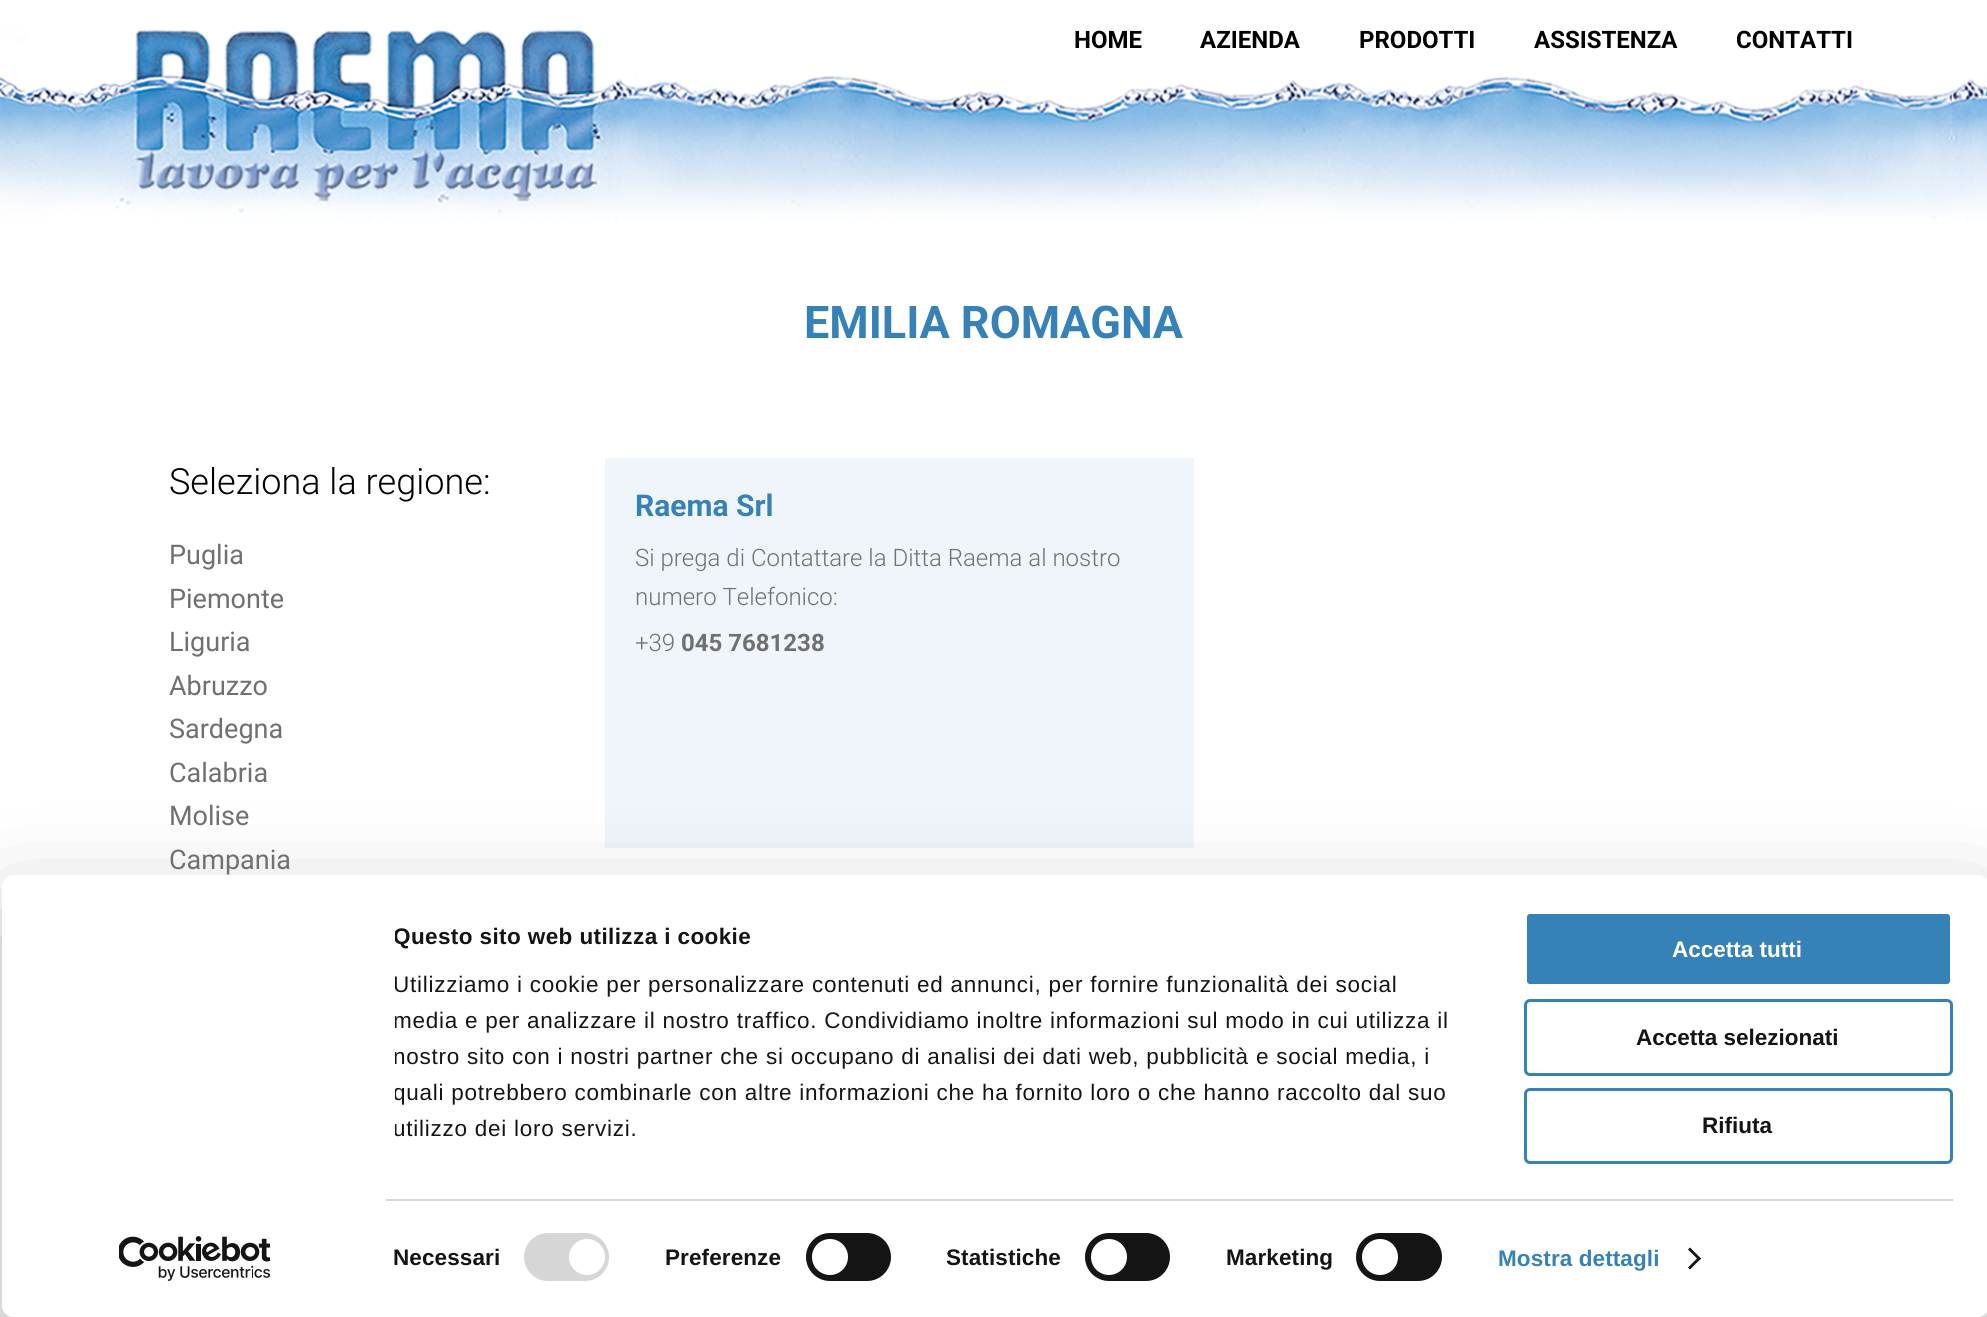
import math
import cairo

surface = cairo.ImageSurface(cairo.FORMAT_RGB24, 1987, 1317)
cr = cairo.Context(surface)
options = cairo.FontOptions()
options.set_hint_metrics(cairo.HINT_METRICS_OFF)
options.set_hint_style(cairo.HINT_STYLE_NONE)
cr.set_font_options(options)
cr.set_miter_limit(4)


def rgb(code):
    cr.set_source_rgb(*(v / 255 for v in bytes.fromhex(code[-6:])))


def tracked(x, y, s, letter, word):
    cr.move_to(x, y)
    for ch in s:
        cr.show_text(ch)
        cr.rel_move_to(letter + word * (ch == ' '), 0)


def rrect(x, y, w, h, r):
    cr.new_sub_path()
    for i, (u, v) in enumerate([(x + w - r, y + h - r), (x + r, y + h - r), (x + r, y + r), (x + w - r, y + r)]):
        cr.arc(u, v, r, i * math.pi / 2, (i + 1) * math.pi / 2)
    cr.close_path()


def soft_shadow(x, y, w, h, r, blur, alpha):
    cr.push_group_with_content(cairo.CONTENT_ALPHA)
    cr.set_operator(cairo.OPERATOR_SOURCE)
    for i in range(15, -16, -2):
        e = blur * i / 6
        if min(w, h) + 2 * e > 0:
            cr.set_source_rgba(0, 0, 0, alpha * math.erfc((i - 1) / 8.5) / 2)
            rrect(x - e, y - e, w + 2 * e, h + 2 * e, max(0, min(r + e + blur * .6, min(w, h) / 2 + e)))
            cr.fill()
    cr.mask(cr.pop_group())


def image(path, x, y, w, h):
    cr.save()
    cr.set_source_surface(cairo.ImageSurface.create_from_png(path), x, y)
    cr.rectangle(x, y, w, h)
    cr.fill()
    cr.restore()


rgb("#ffffff")
cr.paint()
image("img/1.png", 0, 29, 600, 193)
image("img/2.png", 600, 75, 1387, 145)
rgb("#eff5fa")
cr.rectangle(605, 458, 589, 390)
cr.fill()
cr.save()
cr.set_fill_rule(cairo.FILL_RULE_EVEN_ODD)
cr.new_path()
cr.move_to(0, 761)
cr.line_to(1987, 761)
cr.line_to(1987, 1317)
cr.line_to(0, 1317)
cr.close_path()
cr.move_to(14, 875)
cr.line_to(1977, 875)
cr.curve_to(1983.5, 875, 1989, 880.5, 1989, 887)
cr.line_to(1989, 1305)
cr.curve_to(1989, 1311.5, 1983.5, 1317, 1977, 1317)
cr.line_to(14, 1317)
cr.curve_to(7.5, 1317, 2, 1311.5, 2, 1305)
cr.line_to(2, 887)
cr.curve_to(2, 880.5, 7.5, 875, 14, 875)
cr.close_path()
cr.clip()
rgb("#000000")
soft_shadow(2, 920, 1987, 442, 12, 52.5, 0.3)
cr.restore()
rgb("#ffffff")
rrect(2, 875, 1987, 442, 12)
cr.fill()
rgb("#d6d6d6")
cr.rectangle(386, 1199, 1567, 2)
cr.fill()
rrect(524, 1233, 85, 48, 24)
cr.fill()
rgb("#ffffff")
cr.arc(587, 1257, 18, 0, 2 * math.pi)
cr.fill()
rgb("#141414")
rrect(806, 1233, 85, 48, 24)
cr.fill()
rgb("#ffffff")
cr.arc(830, 1257, 18, 0, 2 * math.pi)
cr.fill()
rgb("#141414")
rrect(1085, 1233, 85, 48, 24)
cr.fill()
rgb("#ffffff")
cr.arc(1109, 1257, 18, 0, 2 * math.pi)
cr.fill()
rgb("#141414")
rrect(1356, 1233, 86, 48, 24)
cr.fill()
rgb("#ffffff")
cr.arc(1380, 1257, 18, 0, 2 * math.pi)
cr.fill()
rgb("#141414")
cr.new_path()
cr.move_to(1690, 1247.5)
cr.line_to(1701, 1258.5)
cr.line_to(1699, 1260.5)
cr.line_to(1688, 1249.5)
cr.close_path()
cr.fill()
cr.new_path()
cr.move_to(1699, 1256.5)
cr.line_to(1701, 1258.5)
cr.line_to(1690, 1269.5)
cr.line_to(1688, 1267.5)
cr.close_path()
cr.fill()
rgb("#3781b9")
rrect(1525.5, 912.5, 426, 73, 4.5)
cr.fill_preserve()
rgb("#ffffff")
cr.set_line_width(3)
cr.stroke()
rrect(1525.5, 1000.5, 426, 74, 4.5)
rgb("#3781b9")
cr.stroke()
rrect(1525.5, 1089.5, 426, 73, 4.5)
cr.stroke()
image("img/3.png", 119, 1236, 151, 45)
cr.select_font_face("Roboto", cairo.FONT_SLANT_NORMAL, cairo.FONT_WEIGHT_BOLD)
cr.set_font_size(24)
rgb("#000000")
for x, y, s in [
    (1074, 48, "HOME"),
    (1200, 48, "AZIENDA"),
    (1359, 48, "PRODOTTI"),
    (1534, 48, "ASSISTENZA"),
    (1736, 48, "CONTATTI"),
]:
    cr.move_to(x, y)
    cr.show_text(s)
cr.set_font_size(45)
rgb("#3781b9")
cr.move_to(804, 338)
cr.show_text("EMILIA ROMAGNA")
cr.select_font_face("Roboto Light")
cr.set_font_size(36)
rgb("#000000")
cr.move_to(169, 494)
cr.show_text("Seleziona la regione:")
cr.select_font_face("Roboto")
cr.set_font_size(27)
rgb("#707070")
for x, y, s in [
    (169, 564, "Puglia"),
    (169, 608, "Piemonte"),
    (169, 651, "Liguria"),
    (169, 695, "Abruzzo"),
    (169, 738, "Sardegna"),
    (169, 782, "Calabria"),
    (169, 825, "Molise"),
    (169, 869, "Campania"),
]:
    cr.move_to(x, y)
    cr.show_text(s)
cr.select_font_face("Roboto", cairo.FONT_SLANT_NORMAL, cairo.FONT_WEIGHT_BOLD)
cr.set_font_size(30)
rgb("#3781b9")
cr.move_to(635, 516)
cr.show_text("Raema Srl")
cr.select_font_face("Roboto Light")
cr.set_font_size(24)
rgb("#707070")
for x, y, s in [
    (635, 566, "Si prega di Contattare la Ditta Raema al nostro"),
    (635, 605, "numero Telefonico:"),
    (635, 651, "+39"),
]:
    cr.move_to(x, y)
    cr.show_text(s)
cr.select_font_face("Roboto", cairo.FONT_SLANT_NORMAL, cairo.FONT_WEIGHT_BOLD)
cr.move_to(681, 651)
cr.show_text("045 7681238")
cr.save()
cr.rectangle(395, 920, 1086, 235)
cr.clip()
cr.select_font_face("Liberation Sans", cairo.FONT_SLANT_NORMAL, cairo.FONT_WEIGHT_BOLD)
cr.set_font_size(22.5)
rgb("#141414")
tracked(393, 944, "Questo sito web utilizza i cookie", 0.4, 0)
cr.select_font_face("Liberation Sans")
for x, y, s in [
    (393, 992, "Utilizziamo i cookie per personalizzare contenuti ed annunci, per fornire funzionalità dei social"),
    (393, 1028, "media e per analizzare il nostro traffico. Condividiamo inoltre informazioni sul modo in cui utilizza il"),
    (393, 1064, "nostro sito con i nostri partner che si occupano di analisi dei dati web, pubblicità e social media, i"),
    (393, 1100, "quali potrebbero combinarle con altre informazioni che ha fornito loro o che hanno raccolto dal suo"),
    (393, 1136, "utilizzo dei loro servizi."),
]:
    tracked(x, y, s, 0.75, 0)
cr.restore()
cr.select_font_face("Liberation Sans", cairo.FONT_SLANT_NORMAL, cairo.FONT_WEIGHT_BOLD)
cr.set_font_size(22.5)
rgb("#141414")
for x, y, s in [
    (393, 1265, "Necessari"),
    (665, 1265, "Preferenze"),
    (946, 1265, "Statistiche"),
    (1226, 1265, "Marketing"),
]:
    tracked(x, y, s, 0.1, 0)
rgb("#3781b9")
tracked(1498, 1266, "Mostra dettagli", 0.1, 0)
rgb("#ffffff")
cr.move_to(1672, 957)
cr.show_text("Accetta tutti")
rgb("#141414")
cr.move_to(1636, 1045)
cr.show_text("Accetta selezionati")
cr.move_to(1702, 1133)
cr.show_text("Rifiuta")
surface.write_to_png("page.png")
